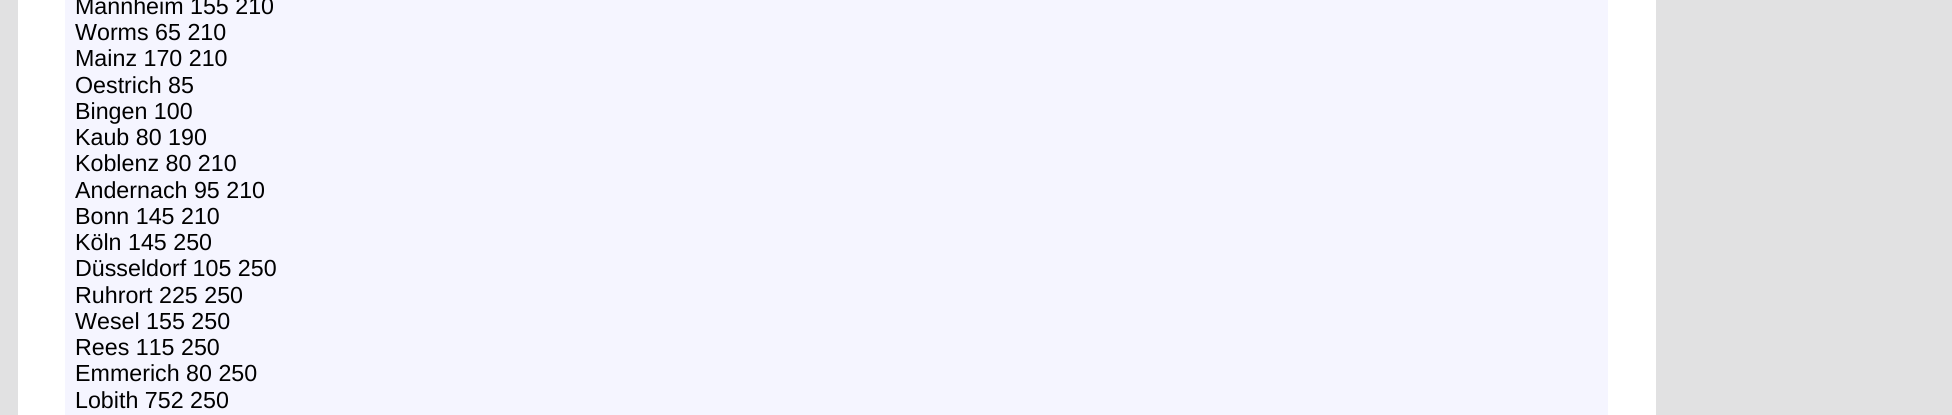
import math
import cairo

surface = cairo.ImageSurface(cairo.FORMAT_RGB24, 1952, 415)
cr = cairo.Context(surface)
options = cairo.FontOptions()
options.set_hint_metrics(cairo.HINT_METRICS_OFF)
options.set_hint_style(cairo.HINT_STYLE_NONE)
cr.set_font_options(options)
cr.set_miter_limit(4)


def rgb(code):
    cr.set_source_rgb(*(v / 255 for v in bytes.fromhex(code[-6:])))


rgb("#e1e1e2")
cr.paint()
rgb("#ffffff")
cr.rectangle(18, 0, 1638, 415)
cr.fill()
rgb("#f5f5ff")
cr.rectangle(65, 0, 1543, 415)
cr.fill()
cr.select_font_face("Liberation Sans")
cr.set_font_size(23.25)
rgb("#000000")
for x, y, s in [
    (75, 14, "Mannheim 155 210"),
    (75, 40, "Worms 65 210"),
    (75, 66, "Mainz 170 210"),
    (75, 93, "Oestrich 85"),
    (75, 119, "Bingen 100"),
    (75, 145, "Kaub 80 190"),
    (75, 171, "Koblenz 80 210"),
    (75, 198, "Andernach 95 210"),
    (75, 224, "Bonn 145 210"),
    (75, 250, "Köln 145 250"),
    (75, 276, "Düsseldorf 105 250"),
    (75, 303, "Ruhrort 225 250"),
    (75, 329, "Wesel 155 250"),
    (75, 355, "Rees 115 250"),
    (75, 381, "Emmerich 80 250"),
    (75, 408, "Lobith 752 250"),
]:
    cr.move_to(x, y)
    cr.show_text(s)
surface.write_to_png("page.png")
